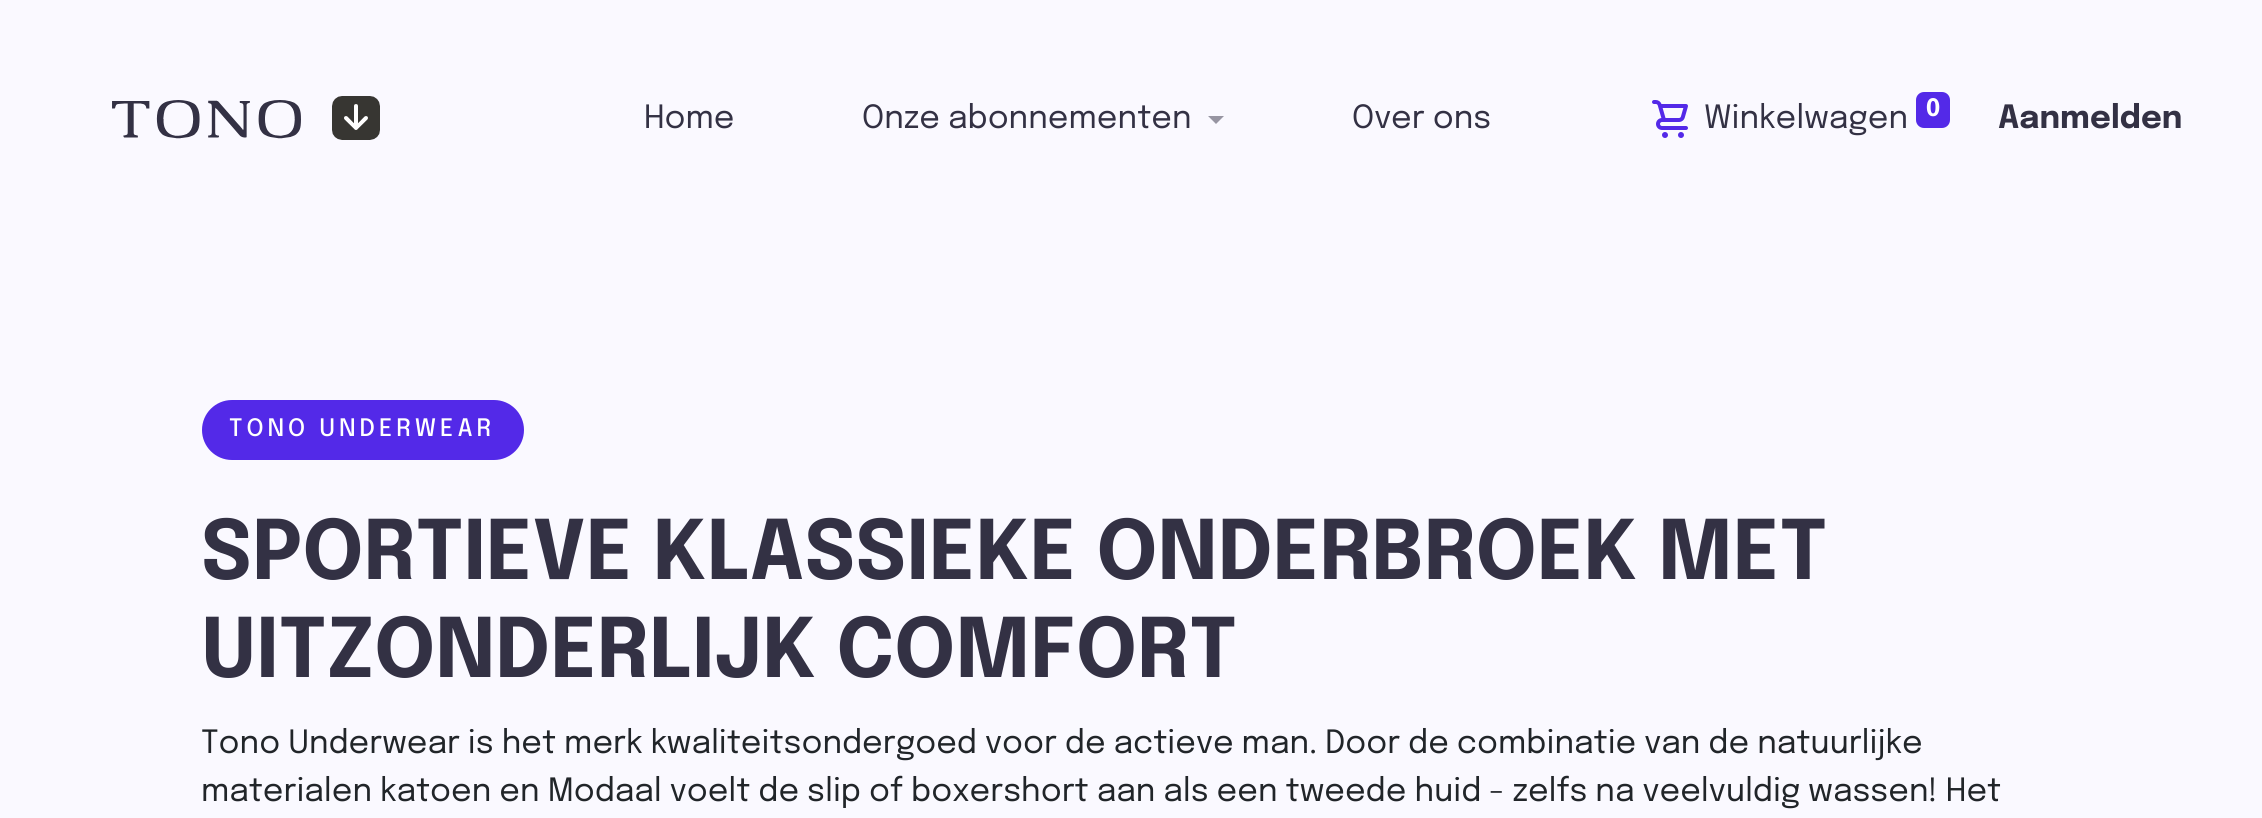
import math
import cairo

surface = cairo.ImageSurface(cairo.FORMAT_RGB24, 2262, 818)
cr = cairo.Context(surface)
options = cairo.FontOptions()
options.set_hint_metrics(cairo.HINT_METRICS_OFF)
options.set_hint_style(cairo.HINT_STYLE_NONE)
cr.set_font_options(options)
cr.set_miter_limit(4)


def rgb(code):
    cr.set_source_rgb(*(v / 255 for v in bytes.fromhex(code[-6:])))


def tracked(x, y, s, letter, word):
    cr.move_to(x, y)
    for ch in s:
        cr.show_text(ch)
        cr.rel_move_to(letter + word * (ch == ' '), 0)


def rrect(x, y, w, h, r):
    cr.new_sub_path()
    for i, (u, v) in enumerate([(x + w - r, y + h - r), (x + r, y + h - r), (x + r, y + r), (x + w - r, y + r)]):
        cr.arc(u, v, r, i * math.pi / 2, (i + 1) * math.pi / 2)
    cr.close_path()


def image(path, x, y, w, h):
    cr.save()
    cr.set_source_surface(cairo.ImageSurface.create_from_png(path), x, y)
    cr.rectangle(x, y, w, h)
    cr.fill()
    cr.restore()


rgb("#faf9ff")
cr.paint()
image("img/1.png", 112, 100, 189, 39)
image("img/2.png", 332, 96, 48, 44)
rgb("#9795a2")
cr.new_path()
cr.move_to(1208, 116)
cr.line_to(1224, 116)
cr.line_to(1216, 124)
cr.close_path()
cr.fill()
image("img/3.png", 1652, 100, 36, 38)
rgb("#5329e8")
rrect(1916, 92, 34, 36, 8)
cr.fill()
rrect(202, 400, 322, 60, 30)
cr.fill()
cr.select_font_face("Epilogue")
cr.set_font_size(32)
rgb("#333144")
for x, y, s in [
    (644, 128, "Home"),
    (862, 128, "Onze abonnementen"),
    (1352, 128, "Over ons"),
    (1704, 128, "Winkelwagen"),
]:
    cr.move_to(x, y)
    cr.show_text(s)
cr.select_font_face("Epilogue", cairo.FONT_SLANT_NORMAL, cairo.FONT_WEIGHT_BOLD)
cr.set_font_size(24)
rgb("#ffffff")
cr.move_to(1926, 116)
cr.show_text("0")
cr.set_font_size(32)
rgb("#333144")
cr.move_to(1998, 128)
cr.show_text("Aanmelden")
cr.select_font_face("Epilogue Medium")
cr.set_font_size(24)
rgb("#ffffff")
tracked(229, 436, "TONO UNDERWEAR", 4, 0)
cr.select_font_face("Epilogue", cairo.FONT_SLANT_NORMAL, cairo.FONT_WEIGHT_BOLD)
cr.set_font_size(81.75)
rgb("#333144")
cr.move_to(201, 579)
cr.show_text("SPORTIEVE KLASSIEKE ONDERBROEK MET")
cr.move_to(201, 677)
cr.show_text("UITZONDERLIJK COMFORT")
cr.select_font_face("Epilogue")
cr.set_font_size(32)
rgb("#212529")
cr.move_to(201, 753)
cr.show_text("Tono Underwear is het merk kwaliteitsondergoed voor de actieve man. Door de combinatie van de natuurlijke")
cr.move_to(201, 801)
cr.show_text("materialen katoen en Modaal voelt de slip of boxershort aan als een tweede huid - zelfs na veelvuldig wassen! Het")
surface.write_to_png("page.png")
